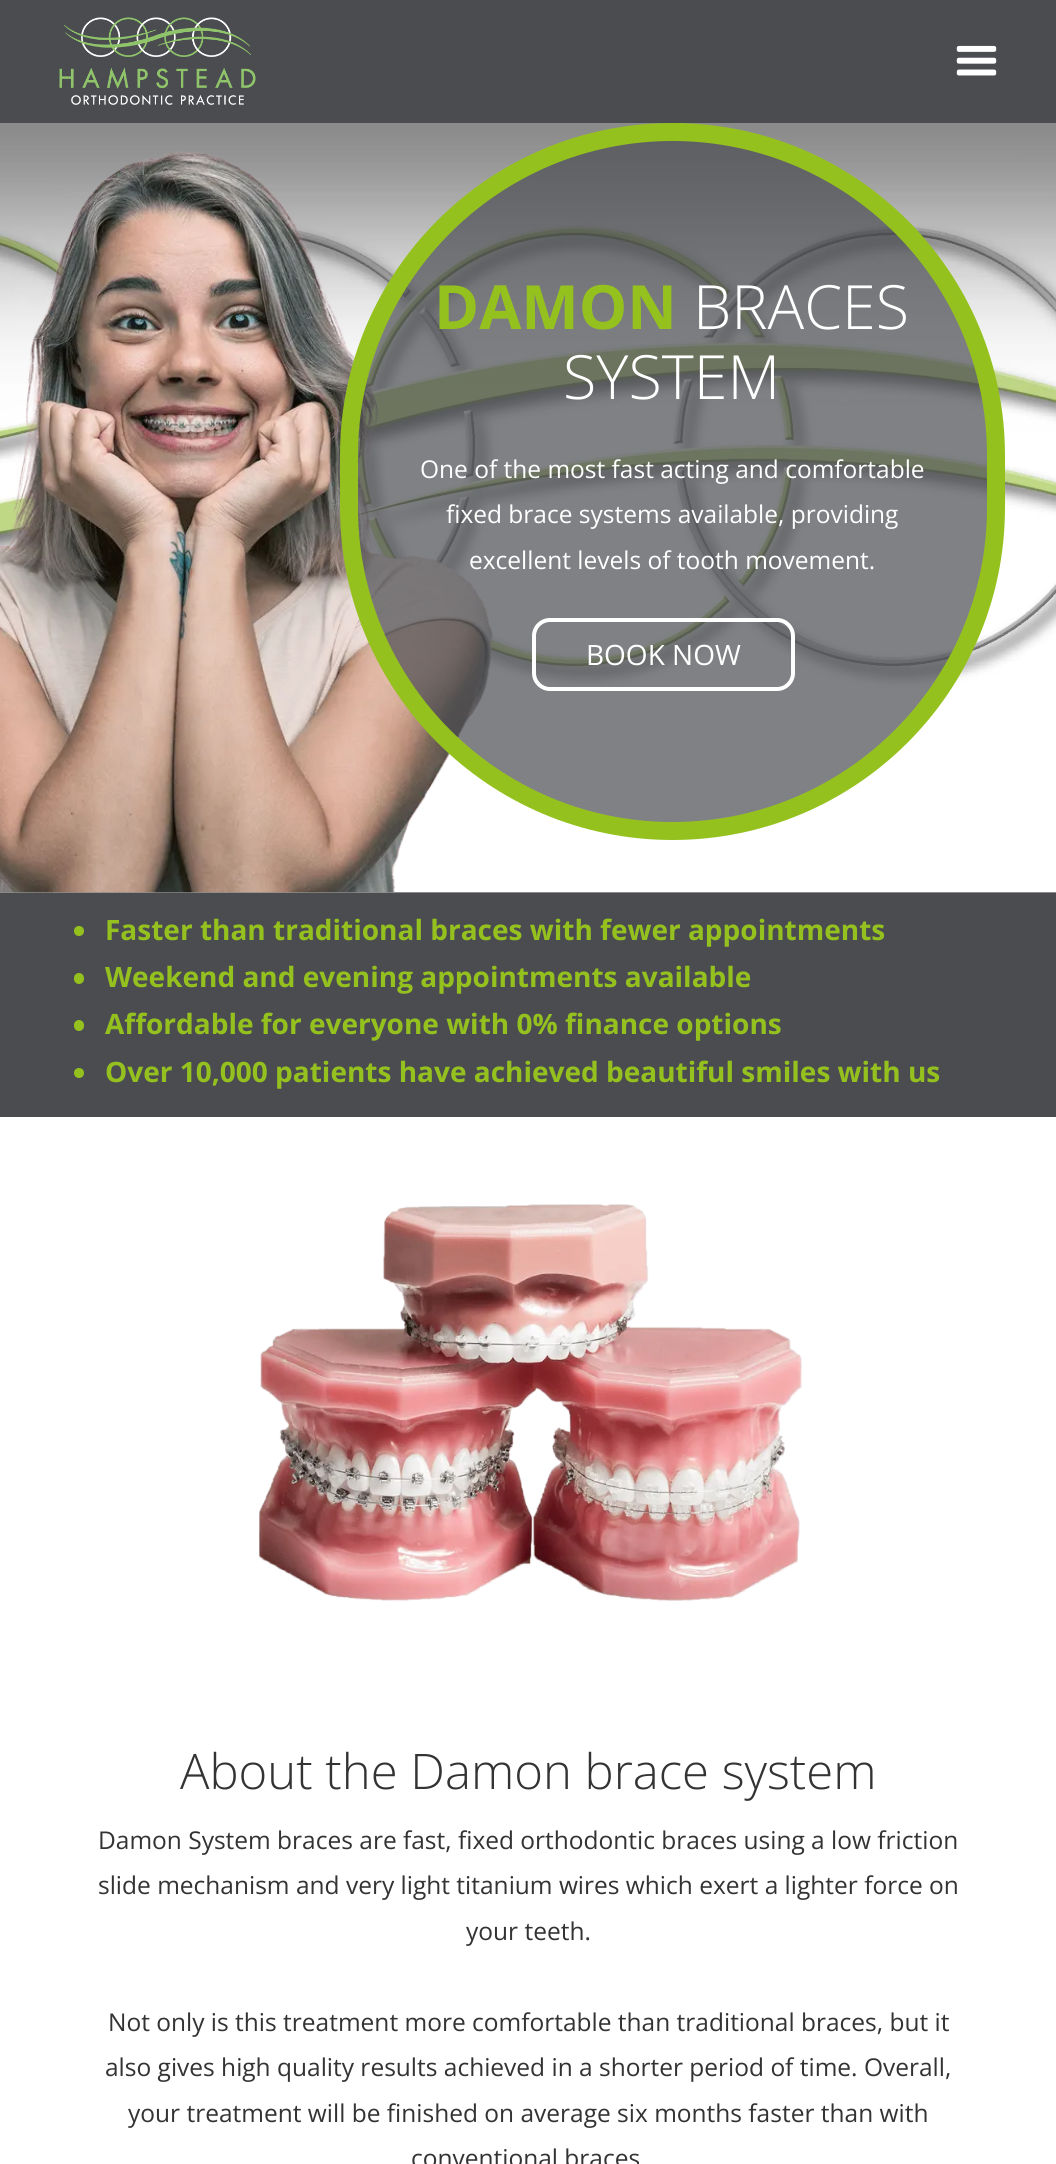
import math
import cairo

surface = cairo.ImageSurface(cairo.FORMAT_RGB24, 1056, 2164)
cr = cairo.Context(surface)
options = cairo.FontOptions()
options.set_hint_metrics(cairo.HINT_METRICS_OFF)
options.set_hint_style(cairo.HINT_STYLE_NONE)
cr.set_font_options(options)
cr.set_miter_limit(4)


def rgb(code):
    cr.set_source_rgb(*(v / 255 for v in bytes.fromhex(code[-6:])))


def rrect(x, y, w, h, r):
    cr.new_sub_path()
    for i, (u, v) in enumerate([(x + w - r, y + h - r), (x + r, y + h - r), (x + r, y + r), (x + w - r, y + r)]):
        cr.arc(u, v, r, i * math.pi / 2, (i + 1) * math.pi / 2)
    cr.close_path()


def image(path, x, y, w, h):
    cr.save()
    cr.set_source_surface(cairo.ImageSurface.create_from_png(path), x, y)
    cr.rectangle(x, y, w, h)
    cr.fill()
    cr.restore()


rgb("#ffffff")
cr.paint()
rgb("#4b4c50")
cr.rectangle(0, 0, 1056, 123)
cr.fill()
image("img/1.png", 59, 17, 197, 88)
image("img/2.png", 956, 45, 41, 31)
rgb("#181816")
cr.rectangle(0, 892, 1056, 1)
cr.fill()
image("img/3.png", 0, 123, 1056, 770)
image("img/4.png", 0, 150, 493, 743)
cr.set_source_rgba(0.294, 0.298, 0.314, 0.7)
rrect(349, 132, 647, 699, 323.5)
cr.fill_preserve()
rgb("#95c11f")
cr.set_line_width(18)
cr.stroke()
rrect(534, 620, 259, 69, 16)
rgb("#ffffff")
cr.set_line_width(4)
cr.stroke()
rgb("#4b4c50")
cr.rectangle(0, 893, 1056, 224)
cr.fill()
rgb("#95c11f")
cr.arc(79, 931, 5, 0, 2 * math.pi)
cr.fill()
rrect(74, 973, 10, 11, 5)
cr.fill()
rrect(74, 1020, 10, 11, 5)
cr.fill()
cr.arc(79, 1073, 5, 0, 2 * math.pi)
cr.fill()
image("img/5.png", 259, 1204, 543, 397)
cr.select_font_face("Open Sans", cairo.FONT_SLANT_NORMAL, cairo.FONT_WEIGHT_BOLD)
cr.set_font_size(61)
cr.move_to(434, 329)
cr.show_text("DAMON")
cr.select_font_face("Open Sans Light")
rgb("#ffffff")
cr.move_to(693, 329)
cr.show_text("BRACES")
cr.move_to(563, 399)
cr.show_text("SYSTEM")
cr.select_font_face("Open Sans")
cr.set_font_size(24.5)
for x, y, s in [
    (420, 478, "One of the most fast acting and comfortable"),
    (446, 523, "fixed brace systems available, providing"),
    (469, 569, "excellent levels of tooth movement."),
]:
    cr.move_to(x, y)
    cr.show_text(s)
cr.set_font_size(28)
cr.move_to(586, 665)
cr.show_text("BOOK NOW")
cr.select_font_face("Open Sans", cairo.FONT_SLANT_NORMAL, cairo.FONT_WEIGHT_BOLD)
rgb("#95c11f")
for x, y, s in [
    (105, 940, "Faster than traditional braces with fewer appointments"),
    (105, 987, "Weekend and evening appointments available"),
    (105, 1034, "Affordable for everyone with 0% finance options"),
    (105, 1082, "Over 10,000 patients have achieved beautiful smiles with us"),
]:
    cr.move_to(x, y)
    cr.show_text(s)
cr.select_font_face("Open Sans Light")
cr.set_font_size(49)
rgb("#333333")
cr.move_to(180, 1789)
cr.show_text("About the Damon brace system")
cr.select_font_face("Open Sans")
cr.set_font_size(24.5)
for x, y, s in [
    (98, 1849, "Damon System braces are fast, fixed orthodontic braces using a low friction"),
    (98, 1894, "slide mechanism and very light titanium wires which exert a lighter force on"),
    (466, 1940, "your teeth."),
    (108, 2031, "Not only is this treatment more comfortable than traditional braces, but it"),
    (105, 2076, "also gives high quality results achieved in a shorter period of time. Overall,"),
    (128, 2122, "your treatment will be finished on average six months faster than with"),
    (411, 2167, "conventional braces"),
]:
    cr.move_to(x, y)
    cr.show_text(s)
surface.write_to_png("page.png")
